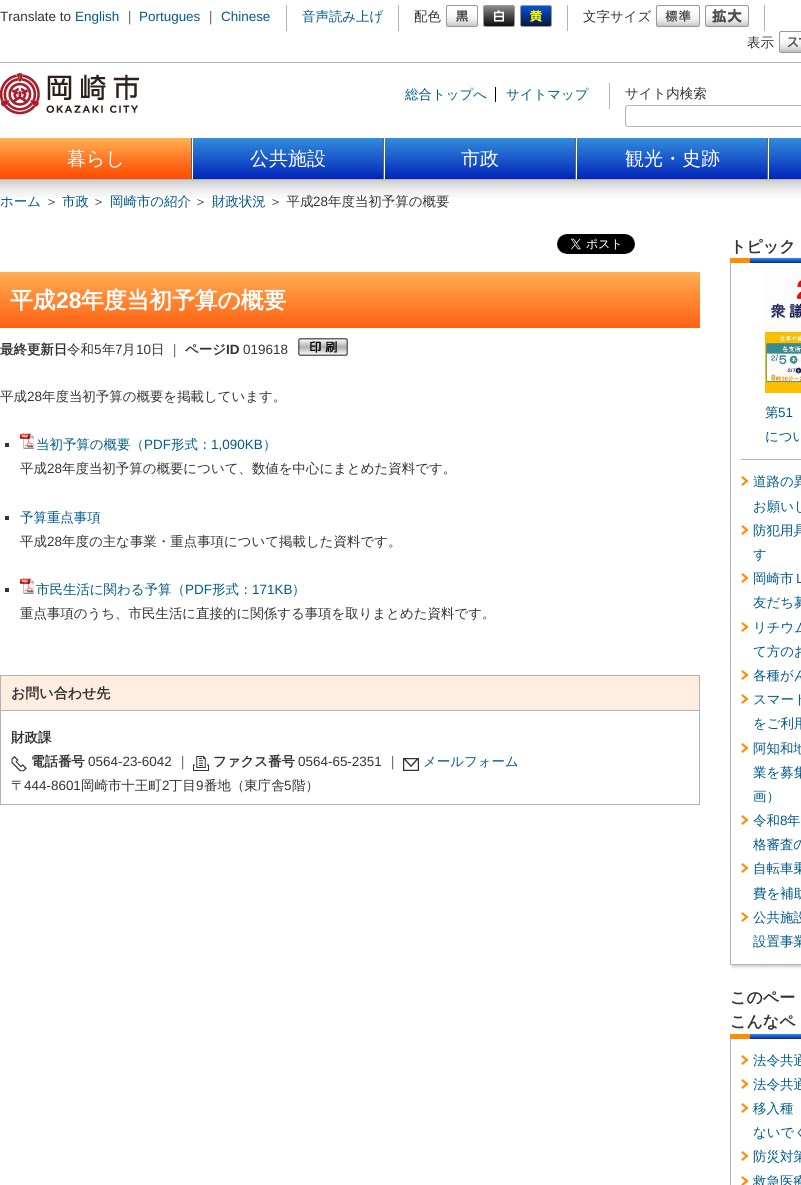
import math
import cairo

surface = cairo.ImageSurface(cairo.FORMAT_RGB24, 801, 1185)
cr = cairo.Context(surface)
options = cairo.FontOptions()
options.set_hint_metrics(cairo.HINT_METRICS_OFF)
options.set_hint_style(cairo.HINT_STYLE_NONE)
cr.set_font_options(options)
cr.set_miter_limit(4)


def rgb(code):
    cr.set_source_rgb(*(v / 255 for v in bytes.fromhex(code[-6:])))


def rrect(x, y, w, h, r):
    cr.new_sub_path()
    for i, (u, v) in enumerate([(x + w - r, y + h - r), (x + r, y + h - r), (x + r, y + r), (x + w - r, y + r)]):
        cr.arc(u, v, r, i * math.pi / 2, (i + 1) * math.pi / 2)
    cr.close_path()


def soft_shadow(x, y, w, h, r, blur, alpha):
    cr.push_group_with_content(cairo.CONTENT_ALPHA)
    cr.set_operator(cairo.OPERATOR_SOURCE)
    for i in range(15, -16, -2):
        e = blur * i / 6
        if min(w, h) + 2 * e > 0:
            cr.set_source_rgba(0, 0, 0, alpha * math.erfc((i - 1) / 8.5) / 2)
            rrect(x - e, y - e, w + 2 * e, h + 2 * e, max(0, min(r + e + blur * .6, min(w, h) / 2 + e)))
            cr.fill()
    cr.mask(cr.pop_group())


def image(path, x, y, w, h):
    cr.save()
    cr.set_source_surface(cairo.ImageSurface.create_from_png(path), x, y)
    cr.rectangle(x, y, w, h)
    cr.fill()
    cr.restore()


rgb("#ffffff")
cr.paint()
for x, y, w, h, color in [
    (0, 62, 801, 1, "#b3b3b3"),
    (286, 5, 1, 26, "#b3b3b3"),
    (398, 5, 1, 26, "#b3b3b3"),
    (567, 5, 1, 26, "#b3b3b3"),
]:
    rgb(color)
    cr.rectangle(x, y, w, h)
    cr.fill()
image("img/1.png", 446, 5, 32, 22)
image("img/2.png", 483, 5, 32, 22)
image("img/3.png", 520, 5, 32, 22)
cr.rectangle(764, 5, 1, 26)
cr.fill()
image("img/4.png", 656, 5, 44, 22)
image("img/5.png", 705, 5, 44, 22)
image("img/6.png", 779, 31, 22, 22)
image("img/7.png", 0, 73, 139, 42)
cr.rectangle(609, 83, 1, 26)
cr.fill()
rgb("#000000")
cr.rectangle(495, 87, 1, 15)
cr.fill()
rrect(625.5, 105.5, 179, 21, 2.5)
rgb("#b3b3b3")
cr.set_line_width(1)
cr.stroke()
image("img/8.png", 0, 138, 191, 41)
rgb("#666666")
cr.rectangle(191, 138, 1, 41)
cr.fill()
rgb("#0222b9")
cr.rectangle(193, 178, 190, 1)
cr.fill()
image("img/9.png", 193, 138, 190, 40)
rgb("#666666")
cr.rectangle(383, 138, 1, 41)
cr.fill()
rgb("#0222b9")
cr.rectangle(385, 178, 190, 1)
cr.fill()
image("img/9.png", 385, 138, 190, 40)
rgb("#666666")
cr.rectangle(575, 138, 1, 41)
cr.fill()
rgb("#0222b9")
cr.rectangle(577, 178, 190, 1)
cr.fill()
image("img/9.png", 577, 138, 190, 40)
rgb("#666666")
cr.rectangle(767, 138, 1, 41)
cr.fill()
rgb("#0222b9")
cr.rectangle(769, 178, 32, 1)
cr.fill()
image("img/10.png", 769, 138, 32, 40)
image("img/11.png", 0, 180, 801, 18)
rgb("#b3b3b3")
cr.rectangle(0, 179, 801, 1)
cr.fill()
image("img/12.png", 557, 234, 78, 20)
image("img/13.png", 0, 272, 700, 56)
image("img/14.png", 298, 338, 50, 18)
rgb("#333333")
cr.rectangle(5, 443, 4, 4)
cr.fill()
image("img/15.png", 20, 433, 14, 16)
cr.rectangle(5, 516, 4, 4)
cr.fill()
cr.rectangle(5, 588, 4, 4)
cr.fill()
image("img/15.png", 20, 578, 14, 16)
cr.rectangle(0.5, 675.5, 699, 129)
rgb("#b3b3b3")
cr.stroke()
rgb("#ffeedf")
cr.rectangle(1, 676, 698, 34)
cr.fill()
rgb("#b3b3b3")
cr.rectangle(1, 710, 698, 1)
cr.fill()
image("img/16.png", 11, 756, 16, 16)
image("img/17.png", 193, 756, 16, 15)
image("img/18.png", 403, 758, 16, 13)
image("img/19.png", 750, 258, 51, 5)
rgb("#ff8b00")
cr.rectangle(730, 258, 20, 5)
cr.fill()
cr.save()
cr.rectangle(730, 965, 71, 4)
cr.clip()
rgb("#000000")
soft_shadow(732, 265, 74, 702, 0, 1.5, 0.2)
cr.restore()
for x, y, w, h, color in [
    (730, 964, 71, 1, "#b3b3b3"),
    (730, 263, 1, 702, "#b3b3b3"),
    (741, 459, 60, 1, "#b3b3b3"),
]:
    rgb(color)
    cr.rectangle(x, y, w, h)
    cr.fill()
image("img/20.png", 765, 273, 36, 120)
image("img/21.png", 741, 476, 8, 10)
image("img/21.png", 741, 525, 8, 10)
image("img/21.png", 741, 573, 8, 10)
image("img/21.png", 741, 622, 8, 10)
image("img/21.png", 741, 670, 8, 10)
image("img/21.png", 741, 694, 8, 10)
image("img/21.png", 741, 743, 8, 10)
image("img/21.png", 741, 815, 8, 10)
image("img/21.png", 741, 863, 8, 10)
image("img/21.png", 741, 912, 8, 10)
image("img/19.png", 750, 1034, 51, 5)
rgb("#ff8b00")
cr.rectangle(730, 1034, 20, 5)
cr.fill()
rgb("#b3b3b3")
cr.rectangle(730, 1039, 1, 146)
cr.fill()
image("img/21.png", 741, 1055, 8, 10)
image("img/21.png", 741, 1079, 8, 10)
image("img/21.png", 741, 1103, 8, 10)
image("img/21.png", 741, 1151, 8, 10)
image("img/22.png", 741, 1176, 8, 9)
cr.select_font_face("Liberation Sans")
cr.set_font_size(13.45)
rgb("#333333")
cr.move_to(0, 21)
cr.show_text("Translate to")
rgb("#00598a")
cr.move_to(75, 21)
cr.show_text("English")
cr.select_font_face("WenQuanYi Zen Hei Medium")
rgb("#333333")
cr.move_to(123, 21)
cr.show_text("｜")
cr.select_font_face("Liberation Sans")
rgb("#00598a")
cr.move_to(139, 21)
cr.show_text("Portugues")
cr.select_font_face("WenQuanYi Zen Hei Medium")
rgb("#333333")
cr.move_to(204, 21)
cr.show_text("｜")
cr.select_font_face("Liberation Sans")
rgb("#00598a")
cr.move_to(221, 21)
cr.show_text("Chinese")
cr.select_font_face("WenQuanYi Zen Hei Medium")
cr.move_to(302, 21)
cr.show_text("音声読み上げ")
rgb("#333333")
for x, y, s in [
    (414, 21, "配色"),
    (583, 21, "文字サイズ"),
    (747, 47, "表示"),
]:
    cr.move_to(x, y)
    cr.show_text(s)
rgb("#00598a")
cr.move_to(405, 99)
cr.show_text("総合トップへ")
cr.move_to(506, 99)
cr.show_text("サイトマップ")
rgb("#333333")
cr.move_to(625, 98)
cr.show_text("サイト内検索")
cr.set_font_size(19)
rgb("#ffffff")
for x, y, s in [
    (67, 165, "暮らし"),
    (250, 165, "公共施設"),
    (461, 165, "市政"),
    (625, 165, "観光・史跡"),
]:
    cr.move_to(x, y)
    cr.show_text(s)
cr.set_font_size(13.45)
rgb("#00598a")
cr.move_to(0, 206)
cr.show_text("ホーム")
rgb("#333333")
cr.move_to(45, 206)
cr.show_text("＞")
rgb("#00598a")
cr.move_to(62, 206)
cr.show_text("市政")
rgb("#333333")
cr.move_to(92, 206)
cr.show_text("＞")
rgb("#00598a")
cr.move_to(110, 206)
cr.show_text("岡崎市の紹介")
rgb("#333333")
cr.move_to(194, 206)
cr.show_text("＞")
rgb("#00598a")
cr.move_to(212, 206)
cr.show_text("財政状況")
rgb("#333333")
cr.move_to(269, 206)
cr.show_text("＞ 平成")
cr.select_font_face("Liberation Sans")
cr.move_to(313, 206)
cr.show_text("28")
cr.select_font_face("WenQuanYi Zen Hei Medium")
cr.move_to(328, 206)
cr.show_text("年度当初予算の概要")
cr.select_font_face("WenQuanYi Zen Hei", cairo.FONT_SLANT_NORMAL, cairo.FONT_WEIGHT_BOLD)
cr.set_font_size(22.75)
rgb("#ffffff")
cr.move_to(10, 308)
cr.show_text("平成")
cr.select_font_face("Liberation Sans", cairo.FONT_SLANT_NORMAL, cairo.FONT_WEIGHT_BOLD)
cr.move_to(56, 308)
cr.show_text("28")
cr.select_font_face("WenQuanYi Zen Hei", cairo.FONT_SLANT_NORMAL, cairo.FONT_WEIGHT_BOLD)
cr.move_to(81, 308)
cr.show_text("年度当初予算の概要")
cr.set_font_size(13.45)
rgb("#333333")
cr.move_to(0, 354)
cr.show_text("最終更新日")
cr.select_font_face("WenQuanYi Zen Hei Medium")
cr.move_to(67, 354)
cr.show_text("令和")
cr.select_font_face("Liberation Sans")
cr.move_to(94, 354)
cr.show_text("5")
cr.select_font_face("WenQuanYi Zen Hei Medium")
cr.move_to(102, 354)
cr.show_text("年")
cr.select_font_face("Liberation Sans")
cr.move_to(115, 354)
cr.show_text("7")
cr.select_font_face("WenQuanYi Zen Hei Medium")
cr.move_to(122, 354)
cr.show_text("月")
cr.select_font_face("Liberation Sans")
cr.move_to(136, 354)
cr.show_text("10")
cr.select_font_face("WenQuanYi Zen Hei Medium")
cr.move_to(151, 354)
cr.show_text("日")
cr.move_to(168, 354)
cr.show_text("｜")
cr.select_font_face("WenQuanYi Zen Hei", cairo.FONT_SLANT_NORMAL, cairo.FONT_WEIGHT_BOLD)
cr.move_to(185, 354)
cr.show_text("ページ")
cr.select_font_face("Liberation Sans", cairo.FONT_SLANT_NORMAL, cairo.FONT_WEIGHT_BOLD)
cr.move_to(226, 354)
cr.show_text("ID")
cr.select_font_face("Liberation Sans")
cr.move_to(243, 354)
cr.show_text("019618")
cr.select_font_face("WenQuanYi Zen Hei Medium")
cr.move_to(0, 401)
cr.show_text("平成")
cr.select_font_face("Liberation Sans")
cr.move_to(27, 401)
cr.show_text("28")
cr.select_font_face("WenQuanYi Zen Hei Medium")
cr.move_to(42, 401)
cr.show_text("年度当初予算の概要を掲載しています。")
rgb("#00598a")
cr.move_to(36, 449)
cr.show_text("当初予算の概要（")
cr.select_font_face("Liberation Sans")
cr.move_to(144, 449)
cr.show_text("PDF")
cr.select_font_face("WenQuanYi Zen Hei Medium")
cr.move_to(171, 449)
cr.show_text("形式：")
cr.select_font_face("Liberation Sans")
cr.move_to(211, 449)
cr.show_text("1,090KB")
cr.select_font_face("WenQuanYi Zen Hei Medium")
cr.move_to(263, 449)
cr.show_text("）")
rgb("#333333")
cr.move_to(20, 473)
cr.show_text("平成")
cr.select_font_face("Liberation Sans")
cr.move_to(47, 473)
cr.show_text("28")
cr.select_font_face("WenQuanYi Zen Hei Medium")
cr.move_to(62, 473)
cr.show_text("年度当初予算の概要について、数値を中心にまとめた資料です。")
rgb("#00598a")
cr.move_to(20, 522)
cr.show_text("予算重点事項")
rgb("#333333")
cr.move_to(20, 546)
cr.show_text("平成")
cr.select_font_face("Liberation Sans")
cr.move_to(47, 546)
cr.show_text("28")
cr.select_font_face("WenQuanYi Zen Hei Medium")
cr.move_to(62, 546)
cr.show_text("年度の主な事業・重点事項について掲載した資料です。")
rgb("#00598a")
cr.move_to(36, 594)
cr.show_text("市民生活に関わる予算（")
cr.select_font_face("Liberation Sans")
cr.move_to(185, 594)
cr.show_text("PDF")
cr.select_font_face("WenQuanYi Zen Hei Medium")
cr.move_to(212, 594)
cr.show_text("形式：")
cr.select_font_face("Liberation Sans")
cr.move_to(252, 594)
cr.show_text("171KB")
cr.select_font_face("WenQuanYi Zen Hei Medium")
cr.move_to(292, 594)
cr.show_text("）")
rgb("#333333")
cr.move_to(20, 618)
cr.show_text("重点事項のうち、市民生活に直接的に関係する事項を取りまとめた資料です。")
cr.select_font_face("WenQuanYi Zen Hei", cairo.FONT_SLANT_NORMAL, cairo.FONT_WEIGHT_BOLD)
cr.set_font_size(14)
cr.move_to(11, 698)
cr.show_text("お問い合わせ先")
cr.set_font_size(13.45)
cr.move_to(11, 742)
cr.show_text("財政課")
cr.move_to(31, 766)
cr.show_text("電話番号")
cr.select_font_face("Liberation Sans")
cr.move_to(88, 766)
cr.show_text("0564-23-6042")
cr.select_font_face("WenQuanYi Zen Hei Medium")
cr.move_to(176, 766)
cr.show_text("｜")
cr.select_font_face("WenQuanYi Zen Hei", cairo.FONT_SLANT_NORMAL, cairo.FONT_WEIGHT_BOLD)
cr.move_to(213, 766)
cr.show_text("ファクス番号")
cr.select_font_face("Liberation Sans")
cr.move_to(298, 766)
cr.show_text("0564-65-2351")
cr.select_font_face("WenQuanYi Zen Hei Medium")
cr.move_to(386, 766)
cr.show_text("｜")
rgb("#00598a")
cr.move_to(423, 766)
cr.show_text("メールフォーム")
rgb("#333333")
cr.move_to(11, 790)
cr.show_text("〒")
cr.select_font_face("Liberation Sans")
cr.move_to(24, 790)
cr.show_text("444-8601")
cr.select_font_face("WenQuanYi Zen Hei Medium")
cr.move_to(81, 790)
cr.show_text("岡崎市十王町")
cr.select_font_face("Liberation Sans")
cr.move_to(162, 790)
cr.show_text("2")
cr.select_font_face("WenQuanYi Zen Hei Medium")
cr.move_to(169, 790)
cr.show_text("丁目")
cr.select_font_face("Liberation Sans")
cr.move_to(196, 790)
cr.show_text("9")
cr.select_font_face("WenQuanYi Zen Hei Medium")
cr.move_to(204, 790)
cr.show_text("番地（東庁舎")
cr.select_font_face("Liberation Sans")
cr.move_to(284, 790)
cr.show_text("5")
cr.select_font_face("WenQuanYi Zen Hei Medium")
cr.move_to(292, 790)
cr.show_text("階）")
cr.select_font_face("WenQuanYi Zen Hei", cairo.FONT_SLANT_NORMAL, cairo.FONT_WEIGHT_BOLD)
cr.set_font_size(16)
cr.move_to(730, 252)
cr.show_text("トピック")
cr.select_font_face("WenQuanYi Zen Hei Medium")
cr.set_font_size(13.45)
rgb("#00598a")
cr.move_to(765, 417)
cr.show_text("第")
cr.select_font_face("Liberation Sans")
cr.move_to(778, 417)
cr.show_text("51")
cr.select_font_face("WenQuanYi Zen Hei Medium")
for x, y, s in [
    (765, 441, "につい"),
    (753, 486, "道路の異"),
    (753, 511, "お願いし"),
    (753, 535, "防犯用具"),
    (753, 559, "す"),
    (753, 583, "岡崎市Ｌ"),
    (753, 607, "友だち募"),
    (753, 632, "リチウム"),
    (753, 656, "て方のお"),
    (753, 680, "各種がん"),
    (753, 704, "スマート"),
    (753, 728, "をご利用"),
    (753, 753, "阿知和地"),
    (753, 777, "業を募集"),
    (753, 801, "画）"),
    (753, 825, "令和"),
]:
    cr.move_to(x, y)
    cr.show_text(s)
cr.select_font_face("Liberation Sans")
cr.move_to(780, 825)
cr.show_text("8")
cr.select_font_face("WenQuanYi Zen Hei Medium")
for x, y, s in [
    (787, 825, "年"),
    (753, 849, "格審査の"),
    (753, 873, "自転車乗"),
    (753, 898, "費を補助"),
    (753, 922, "公共施設"),
    (753, 946, "設置事業"),
]:
    cr.move_to(x, y)
    cr.show_text(s)
cr.select_font_face("WenQuanYi Zen Hei", cairo.FONT_SLANT_NORMAL, cairo.FONT_WEIGHT_BOLD)
cr.set_font_size(16)
rgb("#333333")
cr.move_to(730, 1003)
cr.show_text("このペー")
cr.move_to(730, 1027)
cr.show_text("こんなペ")
cr.select_font_face("WenQuanYi Zen Hei Medium")
cr.set_font_size(13.45)
rgb("#00598a")
for x, y, s in [
    (753, 1065, "法令共通"),
    (753, 1089, "法令共通"),
    (753, 1113, "移入種"),
    (753, 1137, "ないでく"),
    (753, 1161, "防災対策"),
    (753, 1186, "救急医療"),
]:
    cr.move_to(x, y)
    cr.show_text(s)
surface.write_to_png("page.png")
